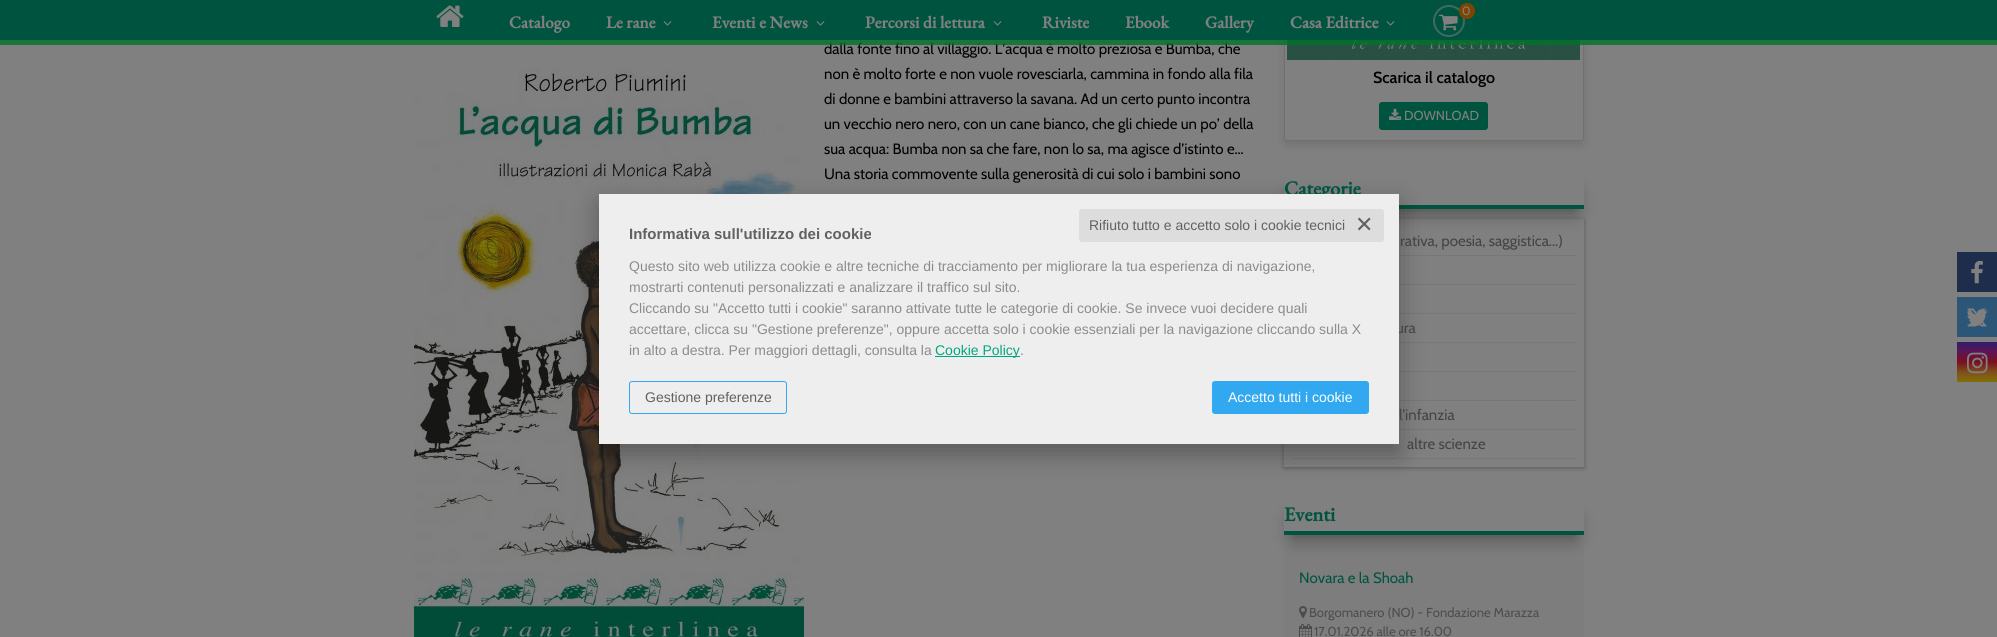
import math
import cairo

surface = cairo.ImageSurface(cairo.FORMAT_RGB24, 1997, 637)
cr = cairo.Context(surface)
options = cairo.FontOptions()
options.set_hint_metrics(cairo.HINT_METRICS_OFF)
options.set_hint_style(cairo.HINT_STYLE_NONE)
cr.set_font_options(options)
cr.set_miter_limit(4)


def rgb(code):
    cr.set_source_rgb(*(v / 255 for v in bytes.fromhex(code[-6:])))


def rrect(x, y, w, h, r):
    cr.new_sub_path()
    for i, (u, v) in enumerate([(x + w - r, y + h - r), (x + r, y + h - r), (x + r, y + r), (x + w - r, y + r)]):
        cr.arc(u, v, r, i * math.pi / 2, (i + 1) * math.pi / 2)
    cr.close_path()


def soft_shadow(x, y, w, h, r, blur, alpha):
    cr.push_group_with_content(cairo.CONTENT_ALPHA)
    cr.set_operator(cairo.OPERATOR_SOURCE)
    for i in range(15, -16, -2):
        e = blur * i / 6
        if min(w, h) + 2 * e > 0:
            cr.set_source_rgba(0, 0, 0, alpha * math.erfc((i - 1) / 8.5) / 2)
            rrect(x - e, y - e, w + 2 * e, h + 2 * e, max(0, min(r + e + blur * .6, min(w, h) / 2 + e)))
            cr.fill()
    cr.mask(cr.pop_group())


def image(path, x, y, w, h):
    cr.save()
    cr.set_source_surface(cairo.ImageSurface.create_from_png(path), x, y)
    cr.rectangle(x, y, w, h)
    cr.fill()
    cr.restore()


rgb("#808080")
cr.paint()
cr.save()
cr.set_fill_rule(cairo.FILL_RULE_EVEN_ODD)
cr.new_path()
cr.move_to(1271, 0)
cr.line_to(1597, 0)
cr.line_to(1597, 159)
cr.line_to(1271, 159)
cr.close_path()
cr.move_to(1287, -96)
cr.line_to(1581, -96)
cr.curve_to(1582.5, -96, 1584, -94.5, 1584, -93)
cr.line_to(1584, 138)
cr.curve_to(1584, 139.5, 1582.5, 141, 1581, 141)
cr.line_to(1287, 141)
cr.curve_to(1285.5, 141, 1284, 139.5, 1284, 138)
cr.line_to(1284, -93)
cr.curve_to(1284, -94.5, 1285.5, -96, 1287, -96)
cr.close_path()
cr.clip()
rgb("#000000")
soft_shadow(1284, -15, 300, 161, 3, 4, 0.1)
cr.restore()
rrect(1284.5, -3.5, 299, 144, 2.5)
rgb("#6f6f6f")
cr.set_line_width(1)
cr.stroke()
rgb("#00543f")
cr.rectangle(0, 0, 1997, 40)
cr.fill()
image("img/1.png", 436, 5, 28, 22)
cr.arc(1449, 21, 15, 0, 2 * math.pi)
rgb("#406a60")
cr.set_line_width(2)
cr.stroke()
rgb("#804400")
cr.arc(1467, 11, 8, 0, 2 * math.pi)
cr.fill()
image("img/2.png", 1439, 14, 19, 17)
image("img/3.png", 663, 21, 9, 5)
image("img/3.png", 816, 21, 9, 5)
image("img/3.png", 993, 21, 9, 5)
image("img/3.png", 1386, 21, 9, 5)
image("img/4.png", 414, 68, 390, 569)
image("img/5.png", 1287, 40, 293, 20)
rgb("#00543f")
rrect(1379, 102, 109, 28, 3)
cr.fill()
image("img/6.png", 1389, 108, 13, 12)
cr.save()
cr.set_fill_rule(cairo.FILL_RULE_EVEN_ODD)
cr.new_path()
cr.move_to(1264, 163)
cr.line_to(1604, 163)
cr.line_to(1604, 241)
cr.line_to(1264, 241)
cr.close_path()
cr.move_to(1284, 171)
cr.line_to(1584, 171)
cr.line_to(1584, 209)
cr.line_to(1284, 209)
cr.close_path()
cr.clip()
rgb("#4d4d4d")
soft_shadow(1292, 191, 284, 22, 0, 9, 1)
cr.restore()
cr.rectangle(1399, 205, 185, 4)
cr.fill()
cr.save()
cr.set_fill_rule(cairo.FILL_RULE_EVEN_ODD)
cr.new_path()
cr.move_to(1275, 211)
cr.line_to(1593, 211)
cr.line_to(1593, 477)
cr.line_to(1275, 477)
cr.close_path()
cr.move_to(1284, 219)
cr.line_to(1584, 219)
cr.line_to(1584, 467)
cr.line_to(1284, 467)
cr.close_path()
cr.clip()
rgb("#000000")
soft_shadow(1284, 220, 300, 248, 0, 2.5, 0.3)
cr.restore()
for x, y, w, h, color in [
    (1399, 255, 177, 1, "#777777"),
    (1399, 284, 177, 1, "#777777"),
    (1399, 313, 177, 1, "#777777"),
    (1399, 342, 177, 1, "#777777"),
    (1399, 371, 177, 1, "#777777"),
    (1399, 400, 177, 1, "#777777"),
    (1399, 429, 177, 1, "#777777"),
    (1292, 458, 284, 1, "#777777"),
    (1284, 545, 300, 92, "#7d7d7d"),
]:
    rgb(color)
    cr.rectangle(x, y, w, h)
    cr.fill()
cr.save()
cr.set_fill_rule(cairo.FILL_RULE_EVEN_ODD)
cr.new_path()
cr.move_to(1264, 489)
cr.line_to(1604, 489)
cr.line_to(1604, 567)
cr.line_to(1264, 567)
cr.close_path()
cr.move_to(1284, 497)
cr.line_to(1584, 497)
cr.line_to(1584, 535)
cr.line_to(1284, 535)
cr.close_path()
cr.clip()
rgb("#4d4d4d")
soft_shadow(1292, 517, 284, 22, 0, 9, 1)
cr.restore()
rgb("#00543f")
cr.rectangle(1284, 531, 300, 4)
cr.fill()
image("img/7.png", 1299, 606, 8, 12)
image("img/8.png", 1299, 624, 13, 13)
rgb("#1e2d4c")
cr.rectangle(1957, 252, 40, 40)
cr.fill()
image("img/9.png", 1971, 260, 12, 24)
rgb("#2b5677")
cr.rectangle(1957, 297, 40, 40)
cr.fill()
image("img/10.png", 1967, 308, 20, 19)
image("img/11.png", 1966, 309, 22, 18)
gradient = cairo.LinearGradient(1977, 342, 1977, 382)
gradient.add_color_stop_rgba(0, 0.18, 0.125, 0.424, 1)
gradient.add_color_stop_rgba(0.25, 0.365, 0.078, 0.329, 1)
gradient.add_color_stop_rgba(0.5, 0.478, 0.063, 0.125, 1)
gradient.add_color_stop_rgba(0.75, 0.498, 0.306, 0.11, 1)
gradient.add_color_stop_rgba(1, 0.502, 0.439, 0.027, 1)
cr.set_source(gradient)
cr.rectangle(1957, 342, 40, 40)
cr.fill()
image("img/12.png", 1967, 352, 21, 22)
rgb("#000000")
soft_shadow(599, 204, 800, 250, 0, 12.5, 0.3)
cr.select_font_face("Cabin")
cr.set_font_size(12)
rgb("#808080")
cr.move_to(1462, 15)
cr.show_text("0")
cr.select_font_face("EB Garamond", cairo.FONT_SLANT_NORMAL, cairo.FONT_WEIGHT_BOLD)
cr.set_font_size(17)
for x, y, s in [
    (509, 28, "Catalogo"),
    (606, 28, "Le rane"),
    (712, 28, "Eventi e News"),
    (865, 28, "Percorsi di lettura"),
    (1042, 28, "Riviste"),
    (1125, 28, "Ebook"),
    (1205, 28, "Gallery"),
    (1290, 28, "Casa Editrice"),
]:
    cr.move_to(x, y)
    cr.show_text(s)
cr.select_font_face("Cabin")
cr.set_font_size(15)
rgb("#000000")
cr.move_to(824, 54)
cr.show_text("dalla fonte fino al villaggio. L’acqua è molto preziosa e Bumba, che")
cr.set_source_rgba(0, 0.447, 0.169, 0.8)
cr.rectangle(0, 40, 1997, 5)
cr.fill()
rgb("#000000")
for x, y, s in [
    (824, 79, "non è molto forte e non vuole rovesciarla, cammina in fondo alla fila"),
    (824, 104, "di donne e bambini attraverso la savana. Ad un certo punto incontra"),
    (824, 129, "un vecchio nero nero, con un cane bianco, che gli chiede un po’ della"),
    (824, 154, "sua acqua: Bumba non sa che fare, non lo sa, ma agisce d’istinto e…"),
    (824, 179, "Una storia commovente sulla generosità di cui solo i bambini sono"),
]:
    cr.move_to(x, y)
    cr.show_text(s)
cr.select_font_face("Cabin SemiBold")
cr.set_font_size(16)
cr.move_to(1373, 83)
cr.show_text("Scarica il catalogo")
cr.select_font_face("Cabin")
cr.set_font_size(13)
rgb("#808080")
cr.move_to(1404, 120)
cr.show_text("DOWNLOAD")
cr.select_font_face("EB Garamond", cairo.FONT_SLANT_NORMAL, cairo.FONT_WEIGHT_BOLD)
cr.set_font_size(20)
rgb("#00543f")
cr.move_to(1284, 195)
cr.show_text("Categorie")
cr.select_font_face("Cabin")
cr.set_font_size(15)
rgb("#444444")
for x, y, s in [
    (1400, 246, "rativa, poesia, saggistica...)"),
    (1396, 333, "ura"),
    (1399, 420, "l'infanzia"),
    (1407, 449, "altre scienze"),
]:
    cr.move_to(x, y)
    cr.show_text(s)
cr.select_font_face("EB Garamond", cairo.FONT_SLANT_NORMAL, cairo.FONT_WEIGHT_BOLD)
cr.set_font_size(20)
rgb("#00543f")
cr.move_to(1284, 521)
cr.show_text("Eventi")
cr.select_font_face("Cabin")
cr.set_font_size(15)
cr.move_to(1299, 583)
cr.show_text("Novara e la Shoah")
cr.set_font_size(13)
rgb("#4d4d4d")
cr.move_to(1309, 617)
cr.show_text("Borgomanero (NO) - Fondazione Marazza")
cr.move_to(1314, 636)
cr.show_text("17.01.2026 alle ore 16.00")
rgb("#eeeeee")
cr.rectangle(599, 194, 800, 250)
cr.fill()
rgb("#dddddd")
rrect(1079, 209, 305, 33, 3)
cr.fill()
cr.select_font_face("Liberation Sans")
cr.set_font_size(14)
rgb("#626060")
cr.move_to(1089, 230)
cr.show_text("Rifiuto tutto e accetto solo i cookie tecnici")
cr.select_font_face("DejaVu Sans")
cr.set_font_size(22)
cr.move_to(1355, 232)
cr.show_text("✕")
cr.select_font_face("Liberation Sans", cairo.FONT_SLANT_NORMAL, cairo.FONT_WEIGHT_BOLD)
cr.set_font_size(15)
cr.move_to(629, 239)
cr.show_text("Informativa sull'utilizzo dei cookie")
cr.select_font_face("Liberation Sans")
cr.set_font_size(14)
rgb("#8d8b8b")
for x, y, s in [
    (629, 271, "Questo sito web utilizza cookie e altre tecniche di tracciamento per migliorare la tua esperienza di navigazione,"),
    (629, 292, "mostrarti contenuti personalizzati e analizzare il traffico sul sito."),
    (629, 313, "Cliccando su \"Accetto tutti i cookie\" saranno attivate tutte le categorie di cookie. Se invece vuoi decidere quali"),
    (629, 334, "accettare, clicca su \"Gestione preferenze\", oppure accetta solo i cookie essenziali per la navigazione cliccando sulla X"),
    (629, 355, "in alto a destra. Per maggiori dettagli, consulta la"),
    (1020, 355, "."),
]:
    cr.move_to(x, y)
    cr.show_text(s)
rgb("#00a77e")
cr.rectangle(935, 356, 85, 1)
cr.fill()
cr.move_to(935, 355)
cr.show_text("Cookie Policy")
rrect(629.5, 381.5, 157, 32, 2.5)
rgb("#31a8f0")
cr.set_line_width(1)
cr.stroke()
rgb("#626060")
cr.move_to(645, 402)
cr.show_text("Gestione preferenze")
rgb("#31a8f0")
rrect(1212.5, 381.5, 156, 32, 2.5)
cr.fill_preserve()
cr.stroke()
rgb("#ffffff")
cr.move_to(1228, 402)
cr.show_text("Accetto tutti i cookie")
surface.write_to_png("page.png")
